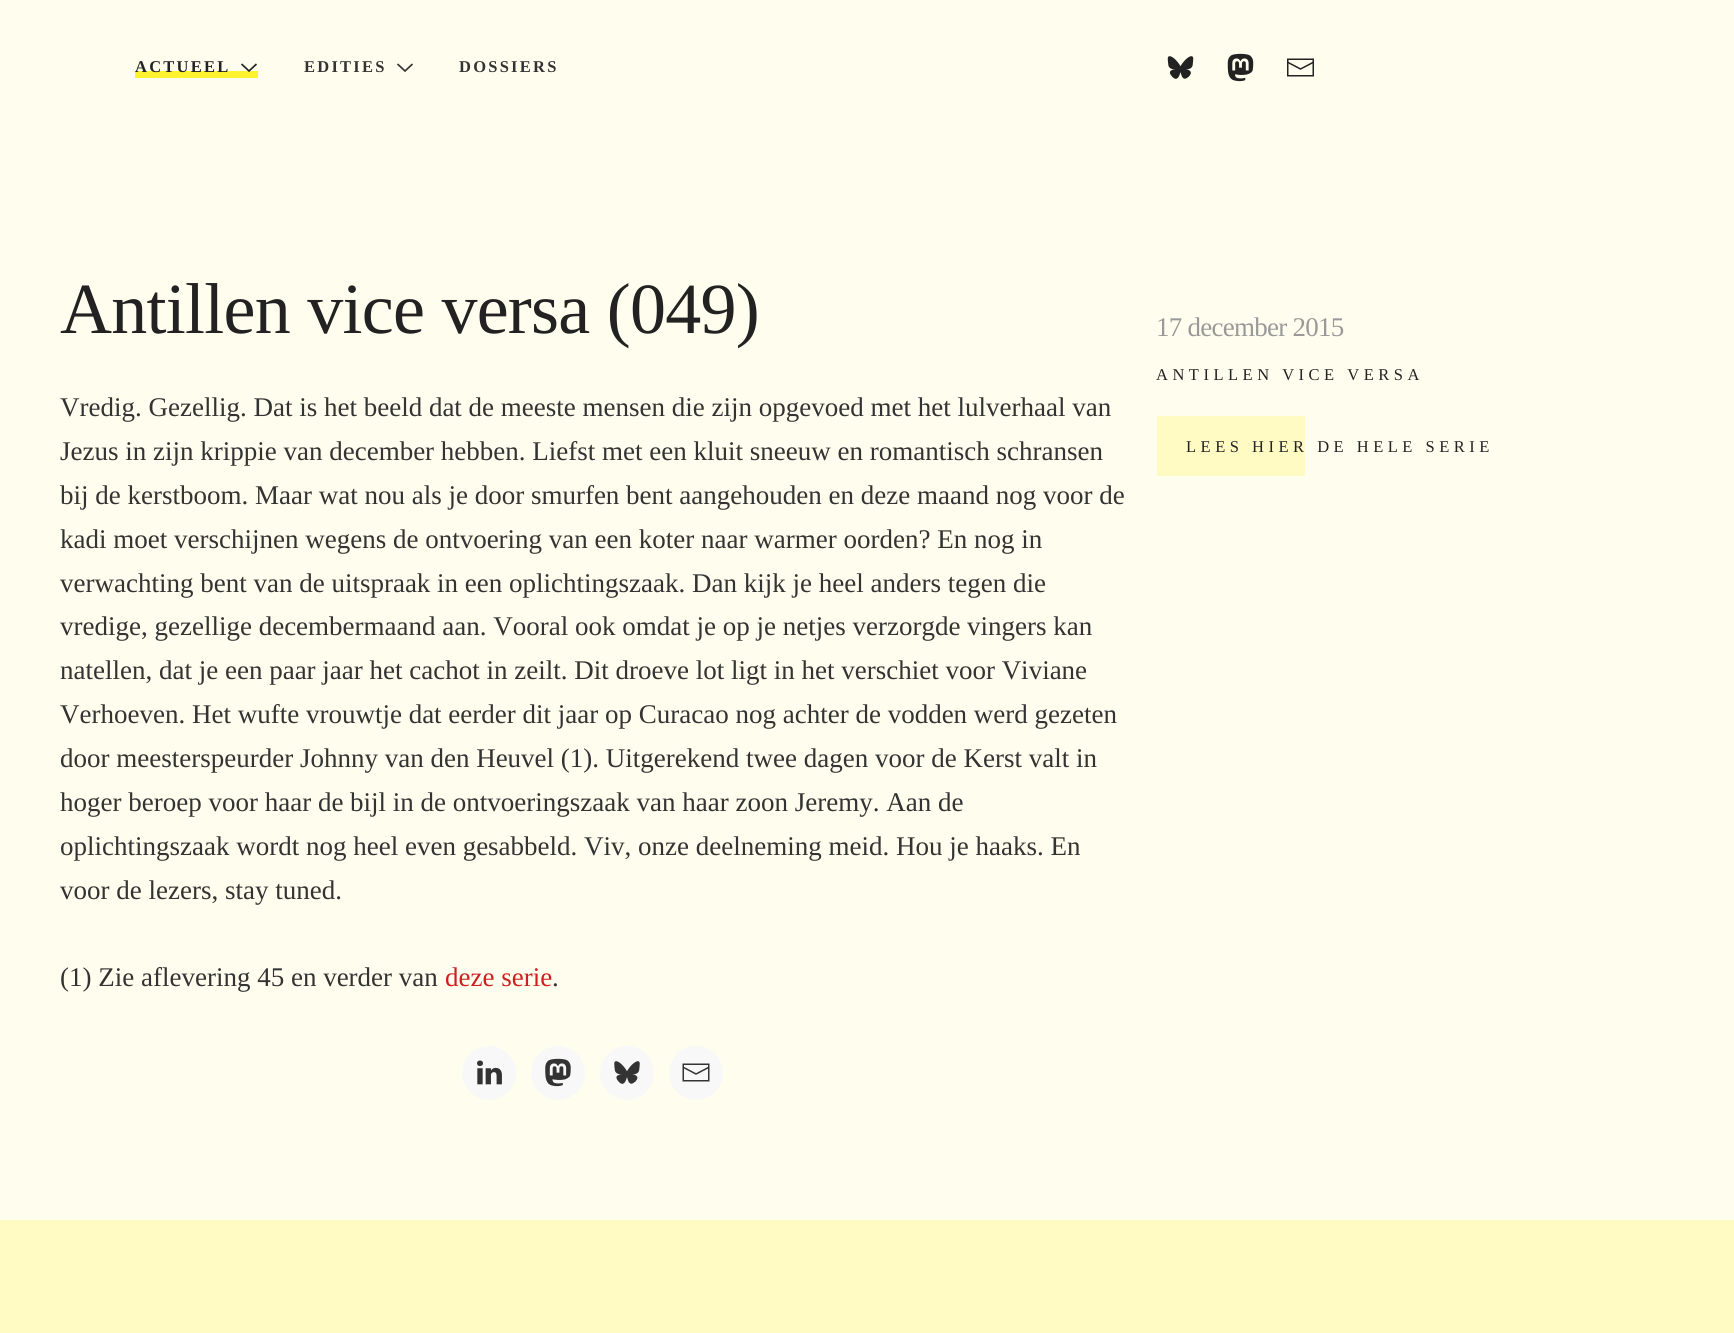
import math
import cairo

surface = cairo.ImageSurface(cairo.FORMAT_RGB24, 1734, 1333)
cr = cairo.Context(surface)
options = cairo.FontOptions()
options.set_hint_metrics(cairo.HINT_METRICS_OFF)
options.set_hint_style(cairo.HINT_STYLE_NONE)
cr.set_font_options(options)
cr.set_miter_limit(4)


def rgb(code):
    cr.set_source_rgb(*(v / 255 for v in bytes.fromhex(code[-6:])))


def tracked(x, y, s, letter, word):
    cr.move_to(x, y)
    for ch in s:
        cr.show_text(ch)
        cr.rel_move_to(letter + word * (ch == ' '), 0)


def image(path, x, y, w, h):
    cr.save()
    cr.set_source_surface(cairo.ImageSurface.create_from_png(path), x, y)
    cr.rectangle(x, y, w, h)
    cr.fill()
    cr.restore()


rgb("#fffeee")
cr.paint()
rgb("#fff330")
cr.rectangle(135, 71, 123, 7)
cr.fill()
cr.new_path()
cr.move_to(241.5, 64)
cr.line_to(249, 71)
cr.line_to(256.5, 64)
rgb("#222222")
cr.set_line_width(1.7)
cr.stroke()
cr.new_path()
cr.move_to(397.5, 64)
cr.line_to(405, 71)
cr.line_to(412.5, 64)
rgb("#333333")
cr.stroke()
image("img/1.png", 1167, 56, 27, 23)
image("img/2.png", 1227, 53, 27, 29)
image("img/3.png", 1287, 58, 27, 19)
rgb("#f8f8f8")
cr.arc(489, 1073, 27, 0, 2 * math.pi)
cr.fill()
image("img/4.png", 477, 1060, 25, 25)
cr.arc(558, 1073, 27, 0, 2 * math.pi)
cr.fill()
image("img/5.png", 545, 1058, 26, 29)
cr.arc(627, 1073, 27, 0, 2 * math.pi)
cr.fill()
image("img/6.png", 614, 1061, 26, 23)
cr.arc(696, 1073, 27, 0, 2 * math.pi)
cr.fill()
image("img/7.png", 682, 1063, 28, 19)
rgb("#fffbc2")
cr.rectangle(1157, 416, 148, 60)
cr.fill()
cr.rectangle(0, 1220, 1734, 113)
cr.fill()
cr.select_font_face("Liberation Serif", cairo.FONT_SLANT_NORMAL, cairo.FONT_WEIGHT_BOLD)
cr.set_font_size(16.5)
rgb("#222222")
tracked(135, 72, "ACTUEEL", 2.25, 0)
rgb("#333333")
tracked(304, 72, "EDITIES", 2.25, 0)
tracked(459, 72, "DOSSIERS", 2.25, 0)
cr.select_font_face("Liberation Serif")
cr.set_font_size(72)
rgb("#222222")
tracked(60, 333, "Antillen vice versa (049)", -0.75, 0)
cr.set_font_size(27)
rgb("#333333")
for x, y, s in [
    (60, 416, "Vredig. Gezellig. Dat is het beeld dat de meeste mensen die zijn opgevoed met het lulverhaal van"),
    (60, 460, "Jezus in zijn krippie van december hebben. Liefst met een kluit sneeuw en romantisch schransen"),
    (60, 504, "bij de kerstboom. Maar wat nou als je door smurfen bent aangehouden en deze maand nog voor de"),
    (60, 548, "kadi moet verschijnen wegens de ontvoering van een koter naar warmer oorden? En nog in"),
    (60, 592, "verwachting bent van de uitspraak in een oplichtingszaak. Dan kijk je heel anders tegen die"),
    (60, 635, "vredige, gezellige decembermaand aan. Vooral ook omdat je op je netjes verzorgde vingers kan"),
    (60, 679, "natellen, dat je een paar jaar het cachot in zeilt. Dit droeve lot ligt in het verschiet voor Viviane"),
    (60, 723, "Verhoeven. Het wufte vrouwtje dat eerder dit jaar op Curacao nog achter de vodden werd gezeten"),
    (60, 767, "door meesterspeurder Johnny van den Heuvel (1). Uitgerekend twee dagen voor de Kerst valt in"),
    (60, 811, "hoger beroep voor haar de bijl in de ontvoeringszaak van haar zoon Jeremy. Aan de"),
    (60, 855, "oplichtingszaak wordt nog heel even gesabbeld. Viv, onze deelneming meid. Hou je haaks. En"),
    (60, 899, "voor de lezers, stay tuned."),
    (60, 986, "(1) Zie aflevering 45 en verder van"),
]:
    cr.move_to(x, y)
    cr.show_text(s)
rgb("#cc1f1f")
cr.move_to(445, 986)
cr.show_text("deze serie")
rgb("#333333")
cr.move_to(552, 986)
cr.show_text(".")
rgb("#999999")
tracked(1156, 336, "17 december 2015", -0.75, 0)
cr.set_font_size(16.5)
rgb("#222222")
tracked(1156, 380, "ANTILLEN VICE VERSA", 4.5, 0)
tracked(1186, 452, "LEES HIER DE HELE SERIE", 4.5, 0)
surface.write_to_png("page.png")
